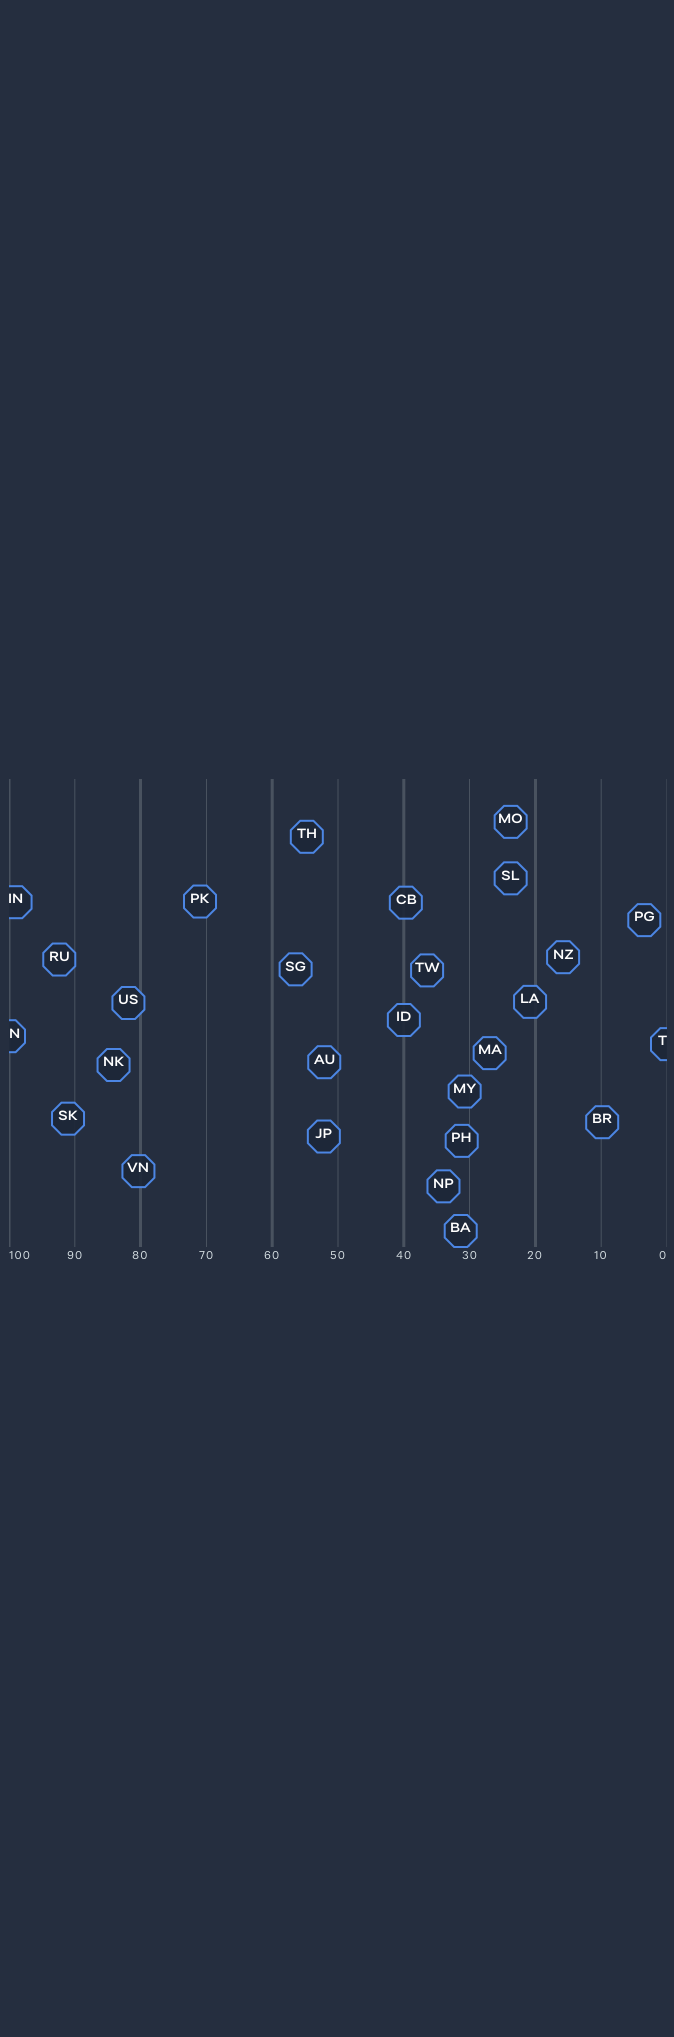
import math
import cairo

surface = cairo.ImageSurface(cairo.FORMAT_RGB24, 674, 2037)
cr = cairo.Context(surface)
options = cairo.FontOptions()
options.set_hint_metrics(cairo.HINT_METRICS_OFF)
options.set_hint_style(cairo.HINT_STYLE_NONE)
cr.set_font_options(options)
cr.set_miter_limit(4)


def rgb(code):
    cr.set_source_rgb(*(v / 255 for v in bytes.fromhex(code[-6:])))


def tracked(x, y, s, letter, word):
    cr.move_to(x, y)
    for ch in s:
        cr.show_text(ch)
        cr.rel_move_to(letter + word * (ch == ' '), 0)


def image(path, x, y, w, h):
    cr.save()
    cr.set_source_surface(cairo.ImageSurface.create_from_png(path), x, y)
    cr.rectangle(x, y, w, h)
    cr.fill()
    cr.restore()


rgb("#252e3f")
cr.paint()
image("img/1.png", 9, 779, 658, 469)
cr.select_font_face("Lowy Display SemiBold")
cr.set_font_size(13)
rgb("#ffffff")
for x, y, s in [
    (498, 823, "MO"),
    (297, 838, "TH"),
    (501, 880, "SL"),
    (8, 903, "IN"),
    (190, 903, "PK"),
    (396, 904, "CB"),
    (634, 921, "PG"),
    (49, 961, "RU"),
    (553, 959, "NZ"),
    (285, 971, "SG"),
    (415, 972, "TW"),
    (118, 1004, "US"),
    (520, 1003, "LA"),
    (396, 1021, "ID"),
    (9, 1038, "N"),
    (658, 1045, "T"),
    (478, 1054, "MA"),
    (103, 1066, "NK"),
    (314, 1064, "AU"),
    (453, 1093, "MY"),
    (58, 1120, "SK"),
    (592, 1123, "BR"),
    (315, 1138, "JP"),
    (451, 1142, "PH"),
    (127, 1172, "VN"),
    (433, 1188, "NP"),
    (450, 1232, "BA"),
]:
    cr.move_to(x, y)
    cr.show_text(s)
cr.select_font_face("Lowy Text")
cr.set_font_size(11)
rgb("#d4dde1")
for x, y, s in [
    (9, 1259, "100"),
    (67, 1259, "90"),
    (132, 1259, "80"),
    (199, 1259, "70"),
    (264, 1259, "60"),
    (330, 1259, "50"),
    (396, 1259, "40"),
    (462, 1259, "30"),
    (527, 1259, "20"),
    (594, 1259, "10"),
    (659, 1259, "0"),
]:
    tracked(x, y, s, 1, 0)
surface.write_to_png("page.png")
